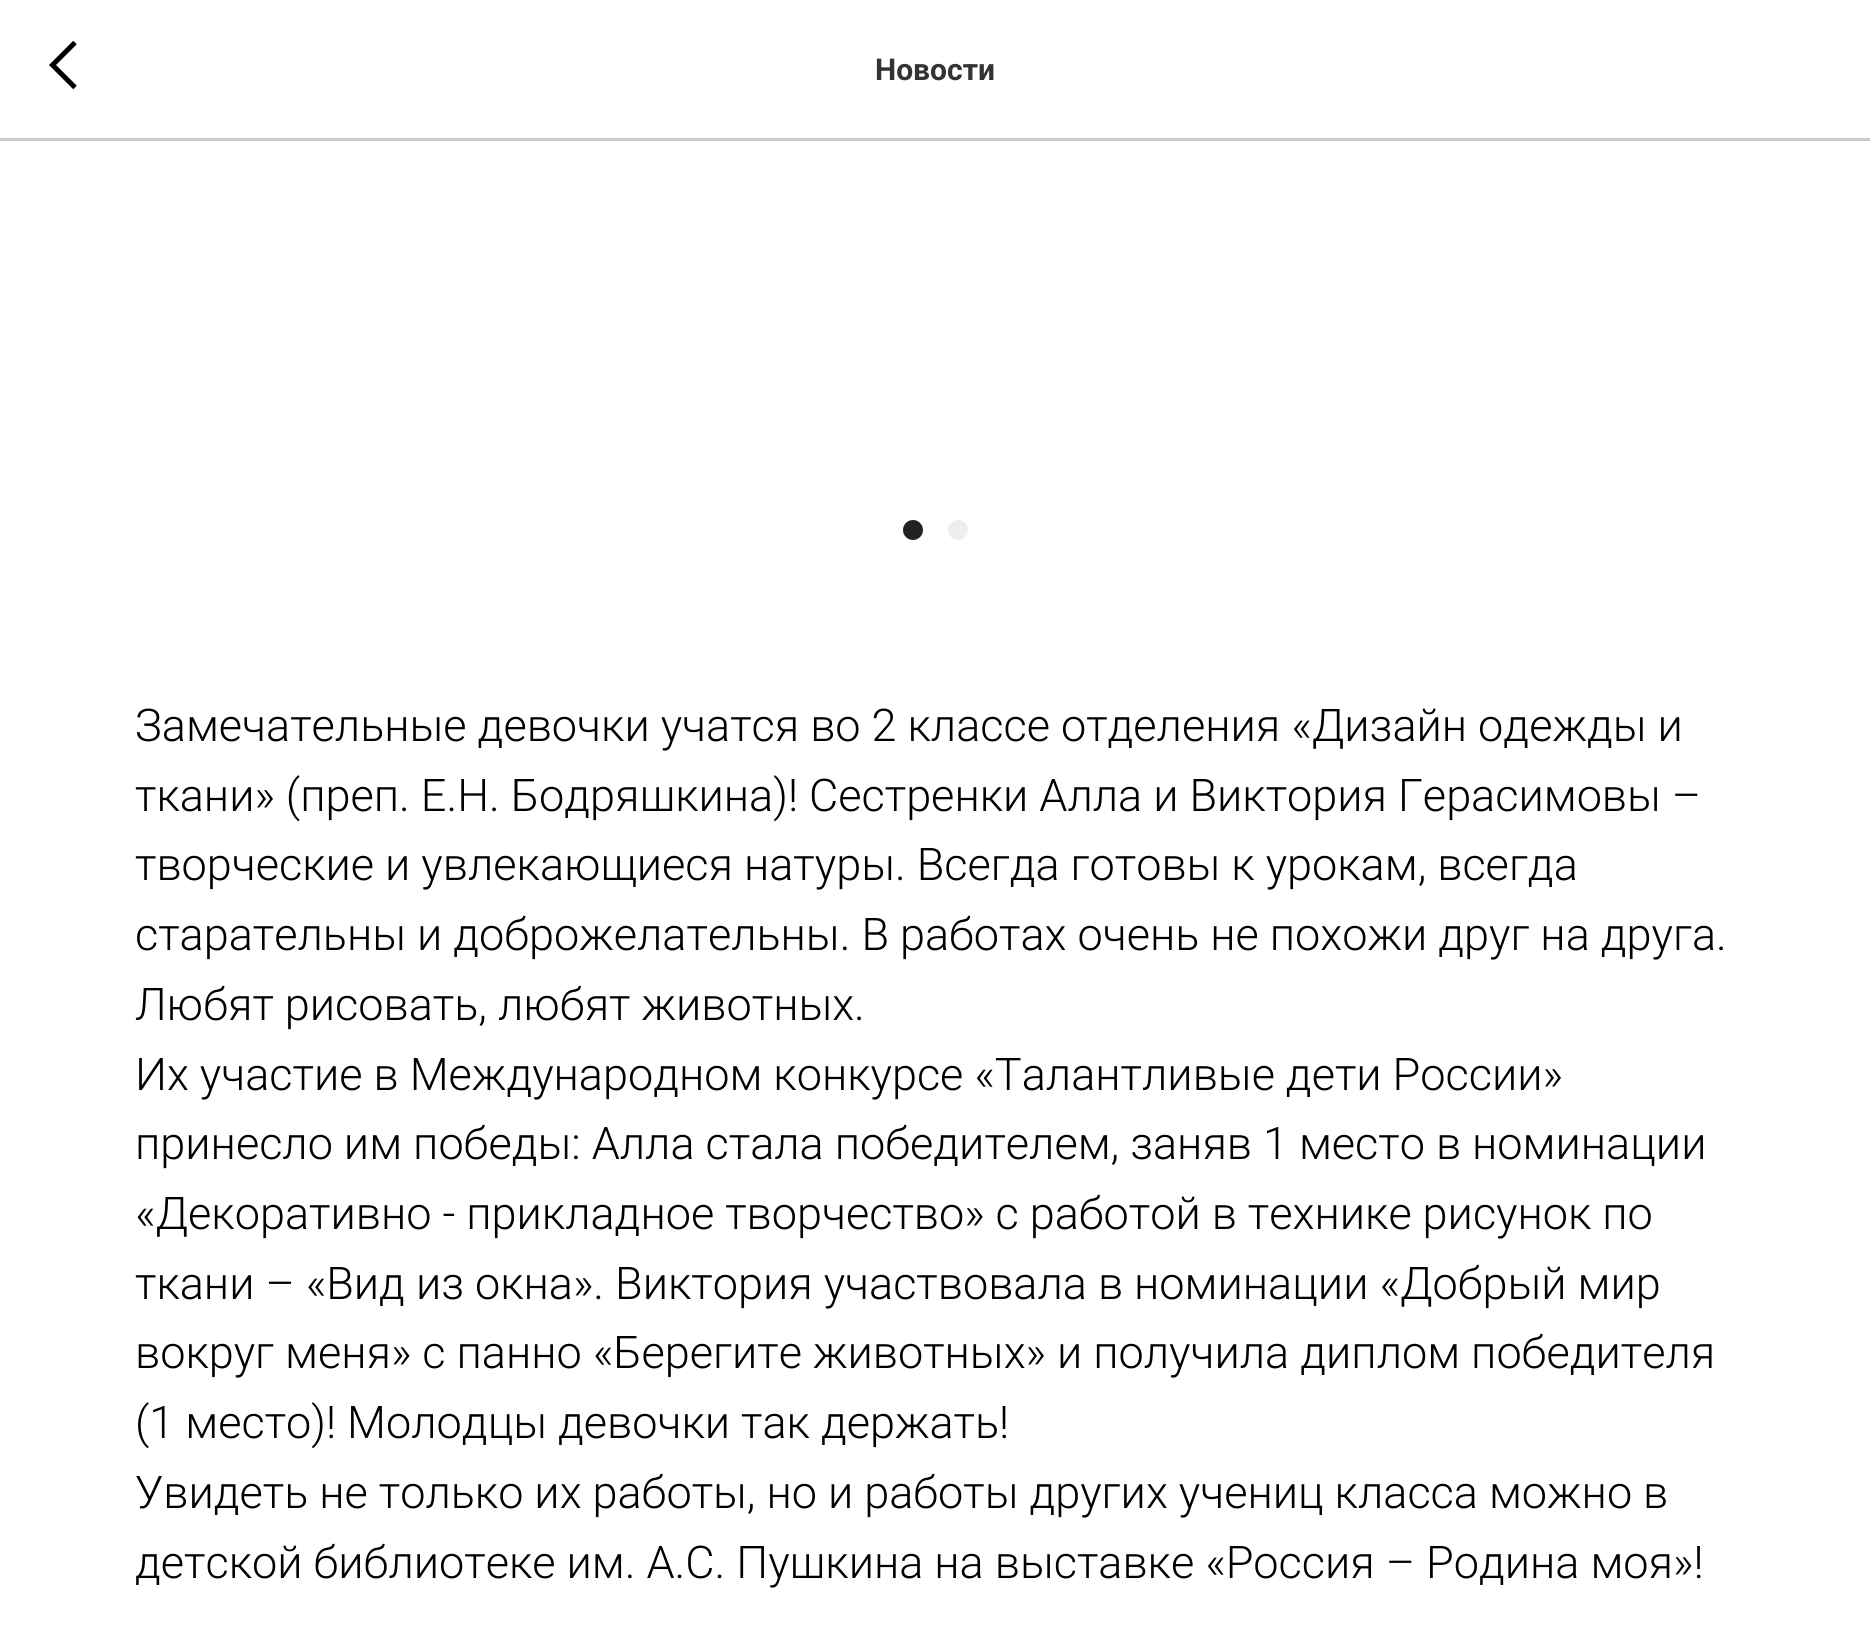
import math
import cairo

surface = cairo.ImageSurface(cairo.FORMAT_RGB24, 1870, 1634)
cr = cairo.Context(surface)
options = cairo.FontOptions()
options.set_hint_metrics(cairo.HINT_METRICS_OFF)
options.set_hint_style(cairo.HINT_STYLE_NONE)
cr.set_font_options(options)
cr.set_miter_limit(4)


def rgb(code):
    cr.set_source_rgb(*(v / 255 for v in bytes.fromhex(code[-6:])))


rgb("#ffffff")
cr.paint()
rgb("#cccccc")
cr.rectangle(0, 138, 1870, 3)
cr.fill()
cr.new_path()
cr.move_to(75, 87.5)
cr.line_to(52.5, 65)
cr.line_to(75, 42.5)
rgb("#000000")
cr.set_line_width(5)
cr.stroke()
rgb("#222222")
cr.arc(913, 530, 10, 0, 2 * math.pi)
cr.fill()
rgb("#eeeeee")
cr.arc(958, 530, 10, 0, 2 * math.pi)
cr.fill()
cr.select_font_face("Roboto", cairo.FONT_SLANT_NORMAL, cairo.FONT_WEIGHT_BOLD)
cr.set_font_size(30)
rgb("#333333")
cr.move_to(875, 80)
cr.show_text("Новости")
cr.select_font_face("Roboto Light")
cr.set_font_size(45)
rgb("#000000")
for x, y, s in [
    (135, 741, "Замечательные девочки учатся во 2 классе отделения «Дизайн одежды и"),
    (135, 811, "ткани» (преп. Е.Н. Бодряшкина)! Сестренки Алла и Виктория Герасимовы –"),
    (135, 880, "творческие и увлекающиеся натуры. Всегда готовы к урокам, всегда"),
    (135, 950, "старательны и доброжелательны. В работах очень не похожи друг на друга."),
    (135, 1020, "Любят рисовать, любят животных."),
    (135, 1090, "Их участие в Международном конкурсе «Талантливые дети России»"),
    (135, 1159, "принесло им победы: Алла стала победителем, заняв 1 место в номинации"),
    (135, 1229, "«Декоративно - прикладное творчество» с работой в технике рисунок по"),
    (135, 1299, "ткани – «Вид из окна». Виктория участвовала в номинации «Добрый мир"),
    (135, 1368, "вокруг меня» с панно «Берегите животных» и получила диплом победителя"),
    (135, 1438, "(1 место)! Молодцы девочки так держать!"),
    (135, 1508, "Увидеть не только их работы, но и работы других учениц класса можно в"),
    (135, 1578, "детской библиотеке им. А.С. Пушкина на выставке «Россия – Родина моя»!"),
]:
    cr.move_to(x, y)
    cr.show_text(s)
surface.write_to_png("page.png")
